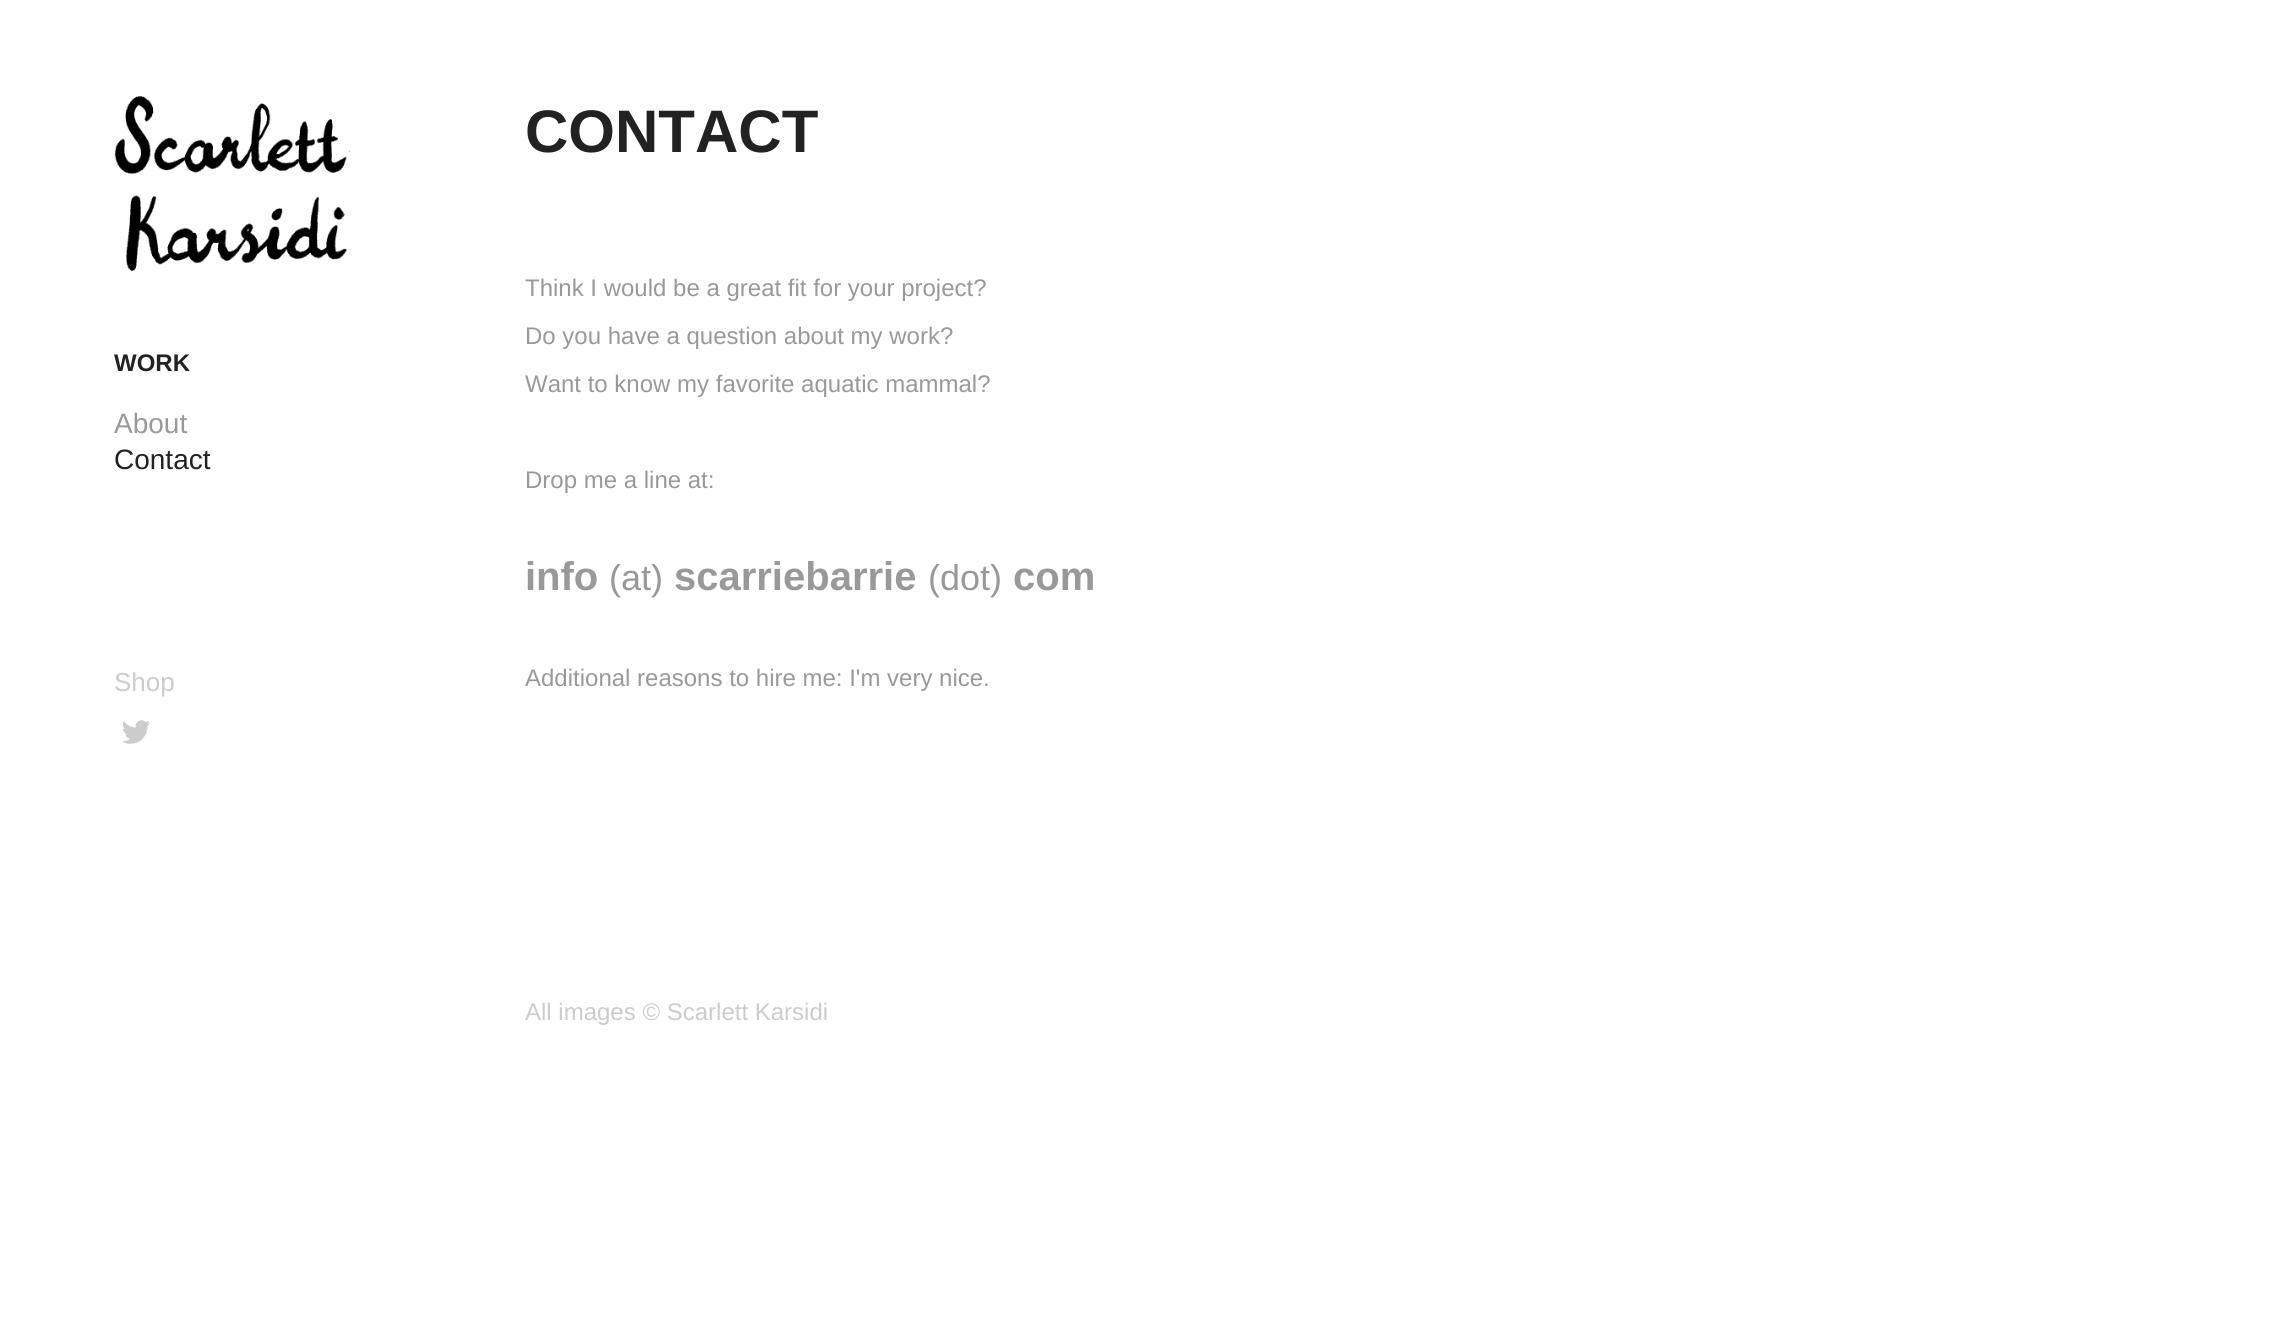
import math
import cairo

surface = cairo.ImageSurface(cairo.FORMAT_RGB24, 2282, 1339)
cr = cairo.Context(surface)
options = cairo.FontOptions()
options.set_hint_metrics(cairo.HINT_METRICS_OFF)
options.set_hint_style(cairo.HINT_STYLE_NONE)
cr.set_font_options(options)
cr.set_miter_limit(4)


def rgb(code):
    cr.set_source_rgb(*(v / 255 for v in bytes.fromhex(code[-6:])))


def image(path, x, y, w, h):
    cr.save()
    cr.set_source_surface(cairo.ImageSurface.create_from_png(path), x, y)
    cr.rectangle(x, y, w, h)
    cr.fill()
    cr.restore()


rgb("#ffffff")
cr.paint()
image("img/1.png", 114, 96, 236, 175)
image("img/2.png", 122, 720, 28, 24)
cr.select_font_face("Liberation Sans", cairo.FONT_SLANT_NORMAL, cairo.FONT_WEIGHT_BOLD)
cr.set_font_size(24)
rgb("#222222")
cr.move_to(114, 371)
cr.show_text("WORK")
cr.select_font_face("Liberation Sans")
cr.set_font_size(28)
rgb("#999999")
cr.move_to(114, 433)
cr.show_text("About")
rgb("#222222")
cr.move_to(114, 469)
cr.show_text("Contact")
cr.set_font_size(26)
rgb("#cccccc")
cr.move_to(114, 691)
cr.show_text("Shop")
cr.select_font_face("Liberation Sans", cairo.FONT_SLANT_NORMAL, cairo.FONT_WEIGHT_BOLD)
cr.set_font_size(60)
rgb("#222222")
cr.move_to(525, 152)
cr.show_text("CONTACT")
cr.select_font_face("Liberation Sans")
cr.set_font_size(24)
rgb("#999999")
for x, y, s in [
    (525, 296, "Think I would be a great fit for your project?"),
    (525, 344, "Do you have a question about my work?"),
    (525, 392, "Want to know my favorite aquatic mammal?"),
    (525, 488, "Drop me a line at:"),
]:
    cr.move_to(x, y)
    cr.show_text(s)
cr.select_font_face("Liberation Sans", cairo.FONT_SLANT_NORMAL, cairo.FONT_WEIGHT_BOLD)
cr.set_font_size(40)
cr.move_to(525, 590)
cr.show_text("info")
cr.select_font_face("Liberation Sans")
cr.set_font_size(36)
cr.move_to(609, 590)
cr.show_text("(at)")
cr.select_font_face("Liberation Sans", cairo.FONT_SLANT_NORMAL, cairo.FONT_WEIGHT_BOLD)
cr.set_font_size(40)
cr.move_to(674, 590)
cr.show_text("scarriebarrie")
cr.select_font_face("Liberation Sans")
cr.set_font_size(36)
cr.move_to(928, 590)
cr.show_text("(dot)")
cr.select_font_face("Liberation Sans", cairo.FONT_SLANT_NORMAL, cairo.FONT_WEIGHT_BOLD)
cr.set_font_size(40)
cr.move_to(1013, 590)
cr.show_text("com")
cr.select_font_face("Liberation Sans")
cr.set_font_size(24)
cr.move_to(525, 686)
cr.show_text("Additional reasons to hire me: I'm very nice.")
rgb("#cccccc")
cr.move_to(525, 1020)
cr.show_text("All images © Scarlett Karsidi")
surface.write_to_png("page.png")
